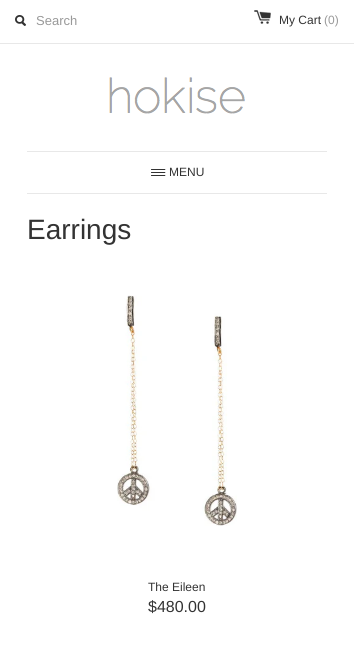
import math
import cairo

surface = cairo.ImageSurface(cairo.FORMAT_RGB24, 354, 659)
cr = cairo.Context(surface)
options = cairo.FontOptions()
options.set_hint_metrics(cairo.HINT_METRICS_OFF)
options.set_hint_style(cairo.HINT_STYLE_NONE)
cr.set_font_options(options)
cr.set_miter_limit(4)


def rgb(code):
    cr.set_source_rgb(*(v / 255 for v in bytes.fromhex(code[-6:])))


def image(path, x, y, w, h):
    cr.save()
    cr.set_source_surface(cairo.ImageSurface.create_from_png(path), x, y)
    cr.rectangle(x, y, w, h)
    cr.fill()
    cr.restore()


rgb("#ffffff")
cr.paint()
rgb("#e8e8e8")
cr.rectangle(0, 43, 354, 1)
cr.fill()
image("img/1.png", 15, 15, 11, 11)
image("img/2.png", 254, 10, 17, 14)
image("img/3.png", 109, 77, 136, 37)
cr.rectangle(27, 151, 300, 1)
cr.fill()
image("img/4.png", 151, 169, 15, 7)
cr.rectangle(27, 193, 300, 1)
cr.fill()
image("img/5.png", 117, 295, 120, 231)
cr.select_font_face("Liberation Sans")
cr.set_font_size(13)
rgb("#999999")
cr.move_to(36, 25)
cr.show_text("Search")
cr.set_font_size(12)
rgb("#333333")
cr.move_to(279, 24)
cr.show_text("My Cart")
rgb("#999999")
cr.move_to(324, 24)
cr.show_text("(0)")
rgb("#333333")
cr.move_to(169, 176)
cr.show_text("MENU")
cr.set_font_size(28)
cr.move_to(27, 239)
cr.show_text("Earrings")
cr.set_font_size(12)
cr.move_to(148, 591)
cr.show_text("The Eileen")
cr.set_font_size(16)
cr.move_to(148, 612)
cr.show_text("$480.00")
surface.write_to_png("page.png")
